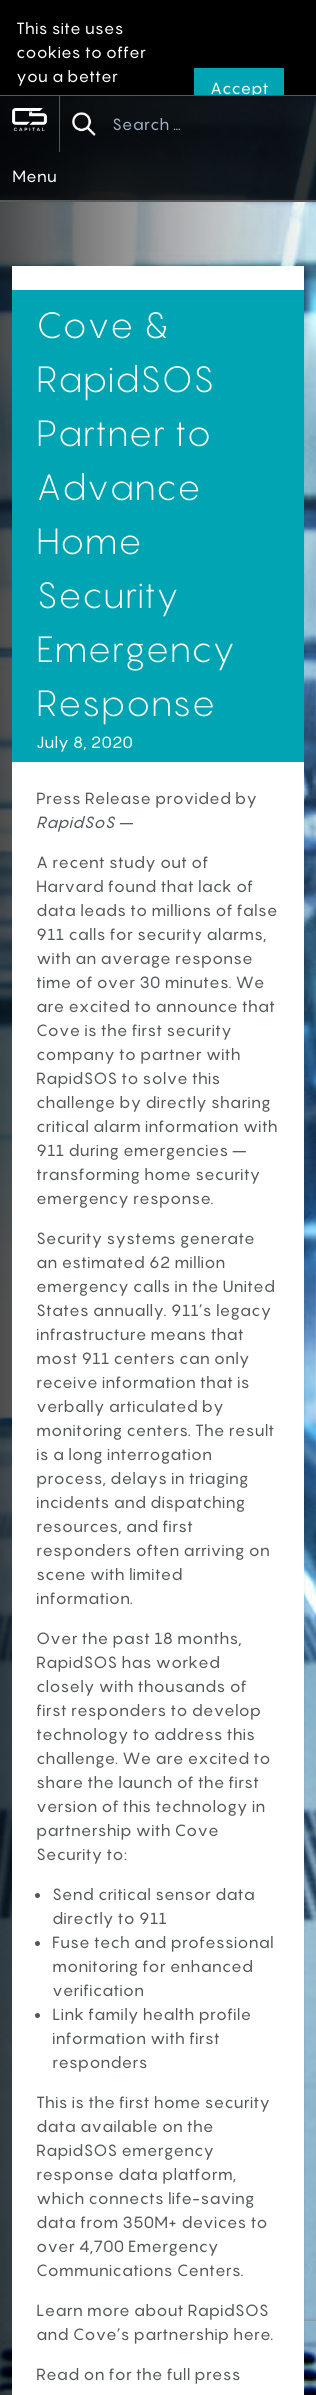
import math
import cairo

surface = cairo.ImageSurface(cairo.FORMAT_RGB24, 316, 2395)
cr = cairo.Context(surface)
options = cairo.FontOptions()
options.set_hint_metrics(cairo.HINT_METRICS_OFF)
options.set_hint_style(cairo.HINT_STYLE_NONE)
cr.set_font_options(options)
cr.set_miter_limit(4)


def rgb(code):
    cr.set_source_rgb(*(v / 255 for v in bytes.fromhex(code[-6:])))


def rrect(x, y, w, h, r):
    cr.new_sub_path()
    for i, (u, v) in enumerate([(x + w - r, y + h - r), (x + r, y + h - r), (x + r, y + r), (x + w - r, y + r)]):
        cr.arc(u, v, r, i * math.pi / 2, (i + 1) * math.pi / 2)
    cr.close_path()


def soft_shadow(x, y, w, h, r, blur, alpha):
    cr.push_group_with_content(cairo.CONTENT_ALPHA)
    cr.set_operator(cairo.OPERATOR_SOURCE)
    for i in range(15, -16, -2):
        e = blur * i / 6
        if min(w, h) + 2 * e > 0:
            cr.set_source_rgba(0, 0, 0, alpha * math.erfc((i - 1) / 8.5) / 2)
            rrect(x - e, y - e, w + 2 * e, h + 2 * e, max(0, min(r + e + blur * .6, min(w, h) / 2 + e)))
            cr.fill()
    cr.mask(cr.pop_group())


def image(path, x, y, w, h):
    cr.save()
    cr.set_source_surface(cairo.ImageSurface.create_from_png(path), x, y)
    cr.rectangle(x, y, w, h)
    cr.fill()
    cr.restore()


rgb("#ffffff")
cr.paint()
image("img/1.png", 0, 96, 316, 2299)
for x, y, w, h, color in [
    (0, 0, 316, 95, "#000000"),
    (0, 95, 316, 1, "#54585a"),
    (194, 68, 90, 27, "#00a4b2"),
]:
    rgb(color)
    cr.rectangle(x, y, w, h)
    cr.fill()
cr.save()
cr.set_fill_rule(cairo.FILL_RULE_EVEN_ODD)
cr.new_path()
cr.move_to(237, 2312)
cr.line_to(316, 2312)
cr.line_to(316, 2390)
cr.line_to(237, 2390)
cr.close_path()
cr.move_to(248, 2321)
cr.line_to(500, 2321)
cr.curve_to(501, 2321, 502, 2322, 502, 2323)
cr.line_to(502, 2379)
cr.curve_to(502, 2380, 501, 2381, 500, 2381)
cr.line_to(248, 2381)
cr.curve_to(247, 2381, 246, 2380, 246, 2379)
cr.line_to(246, 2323)
cr.curve_to(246, 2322, 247, 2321, 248, 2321)
cr.close_path()
cr.clip()
rgb("#808080")
soft_shadow(246, 2321, 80, 60, 2, 2.5, 1)
cr.restore()
gradient = cairo.LinearGradient(316, 1198, 0, 1198)
gradient.add_color_stop_rgba(0, 0, 0, 0, 0)
gradient.add_color_stop_rgba(1, 0, 0, 0, 0.7)
cr.set_source(gradient)
cr.rectangle(0, 96, 306, 2299)
cr.fill()
cr.set_source_rgba(0, 0, 0, 0.8)
cr.rectangle(0, 96, 316, 104)
cr.fill()
rgb("#54585a")
cr.rectangle(0, 200, 316, 2)
cr.fill()
image("img/2.png", 12, 108, 35, 23)
cr.rectangle(59, 96, 1, 56)
cr.fill()
image("img/3.png", 72, 112, 24, 24)
rgb("#ffffff")
cr.rectangle(12, 266, 292, 2129)
cr.fill()
rgb("#00a4b2")
cr.rectangle(12, 290, 292, 472)
cr.fill()
rgb("#54585a")
cr.arc(37.5, 1895.5, 2.5, 0, 2 * math.pi)
cr.fill()
cr.arc(37.5, 1943.5, 2.5, 0, 2 * math.pi)
cr.fill()
cr.arc(37.5, 2015.5, 2.5, 0, 2 * math.pi)
cr.fill()
cr.select_font_face("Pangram")
cr.set_font_size(16)
rgb("#ffffff")
for x, y, s in [
    (16, 34, "This site uses"),
    (16, 58, "cookies to offer"),
    (16, 82, "you a better"),
]:
    cr.move_to(x, y)
    cr.show_text(s)
cr.save()
cr.rectangle(0, 0, 316, 95)
cr.clip()
cr.move_to(210, 94)
cr.show_text("Accept")
cr.restore()
rgb("#a0aec0")
cr.move_to(112, 130)
cr.show_text("Search …")
rgb("#ffffff")
cr.move_to(12, 182)
cr.show_text("Menu")
cr.select_font_face("Pangram Light")
cr.set_font_size(36)
for x, y, s in [
    (36, 338, "Cove &"),
    (36, 392, "RapidSOS"),
    (36, 446, "Partner to"),
    (36, 500, "Advance"),
    (36, 554, "Home"),
    (36, 608, "Security"),
    (36, 662, "Emergency"),
    (36, 716, "Response"),
]:
    cr.move_to(x, y)
    cr.show_text(s)
cr.select_font_face("Pangram")
cr.set_font_size(16)
cr.move_to(36, 748)
cr.show_text("July 8, 2020")
rgb("#54585a")
cr.move_to(36, 804)
cr.show_text("Press Release provided by")
cr.select_font_face("Pangram", cairo.FONT_SLANT_ITALIC)
cr.move_to(36, 828)
cr.show_text("RapidSoS –")
cr.select_font_face("Pangram")
for x, y, s in [
    (36, 868, "A recent study out of"),
    (36, 892, "Harvard found that lack of"),
    (36, 916, "data leads to millions of false"),
    (36, 940, "911 calls for security alarms,"),
    (36, 964, "with an average response"),
    (36, 988, "time of over 30 minutes. We"),
    (36, 1012, "are excited to announce that"),
    (36, 1036, "Cove is the first security"),
    (36, 1060, "company to partner with"),
    (36, 1084, "RapidSOS to solve this"),
    (36, 1108, "challenge by directly sharing"),
    (36, 1132, "critical alarm information with"),
    (36, 1156, "911 during emergencies –"),
    (36, 1180, "transforming home security"),
    (36, 1204, "emergency response."),
    (36, 1244, "Security systems generate"),
    (36, 1268, "an estimated 62 million"),
    (36, 1292, "emergency calls in the United"),
    (36, 1316, "States annually. 911’s legacy"),
    (36, 1340, "infrastructure means that"),
    (36, 1364, "most 911 centers can only"),
    (36, 1388, "receive information that is"),
    (36, 1412, "verbally articulated by"),
    (36, 1436, "monitoring centers. The result"),
    (36, 1460, "is a long interrogation"),
    (36, 1484, "process, delays in triaging"),
    (36, 1508, "incidents and dispatching"),
    (36, 1532, "resources, and first"),
    (36, 1556, "responders often arriving on"),
    (36, 1580, "scene with limited"),
    (36, 1604, "information."),
    (36, 1644, "Over the past 18 months,"),
    (36, 1668, "RapidSOS has worked"),
    (36, 1692, "closely with thousands of"),
    (36, 1716, "first responders to develop"),
    (36, 1740, "technology to address this"),
    (36, 1764, "challenge. We are excited to"),
    (36, 1788, "share the launch of the first"),
    (36, 1812, "version of this technology in"),
    (36, 1836, "partnership with Cove"),
    (36, 1860, "Security to:"),
    (52, 1900, "Send critical sensor data"),
    (52, 1924, "directly to 911"),
    (52, 1948, "Fuse tech and professional"),
    (52, 1972, "monitoring for enhanced"),
    (52, 1996, "verification"),
    (52, 2020, "Link family health profile"),
    (52, 2044, "information with first"),
    (52, 2068, "responders"),
    (36, 2108, "This is the first home security"),
    (36, 2132, "data available on the"),
    (36, 2156, "RapidSOS emergency"),
    (36, 2180, "response data platform,"),
    (36, 2204, "which connects life-saving"),
    (36, 2228, "data from 350M+ devices to"),
    (36, 2252, "over 4,700 Emergency"),
    (36, 2276, "Communications Centers."),
    (36, 2316, "Learn more about RapidSOS"),
    (36, 2340, "and Cove’s partnership here."),
    (36, 2380, "Read on for the full press"),
]:
    cr.move_to(x, y)
    cr.show_text(s)
surface.write_to_png("page.png")
